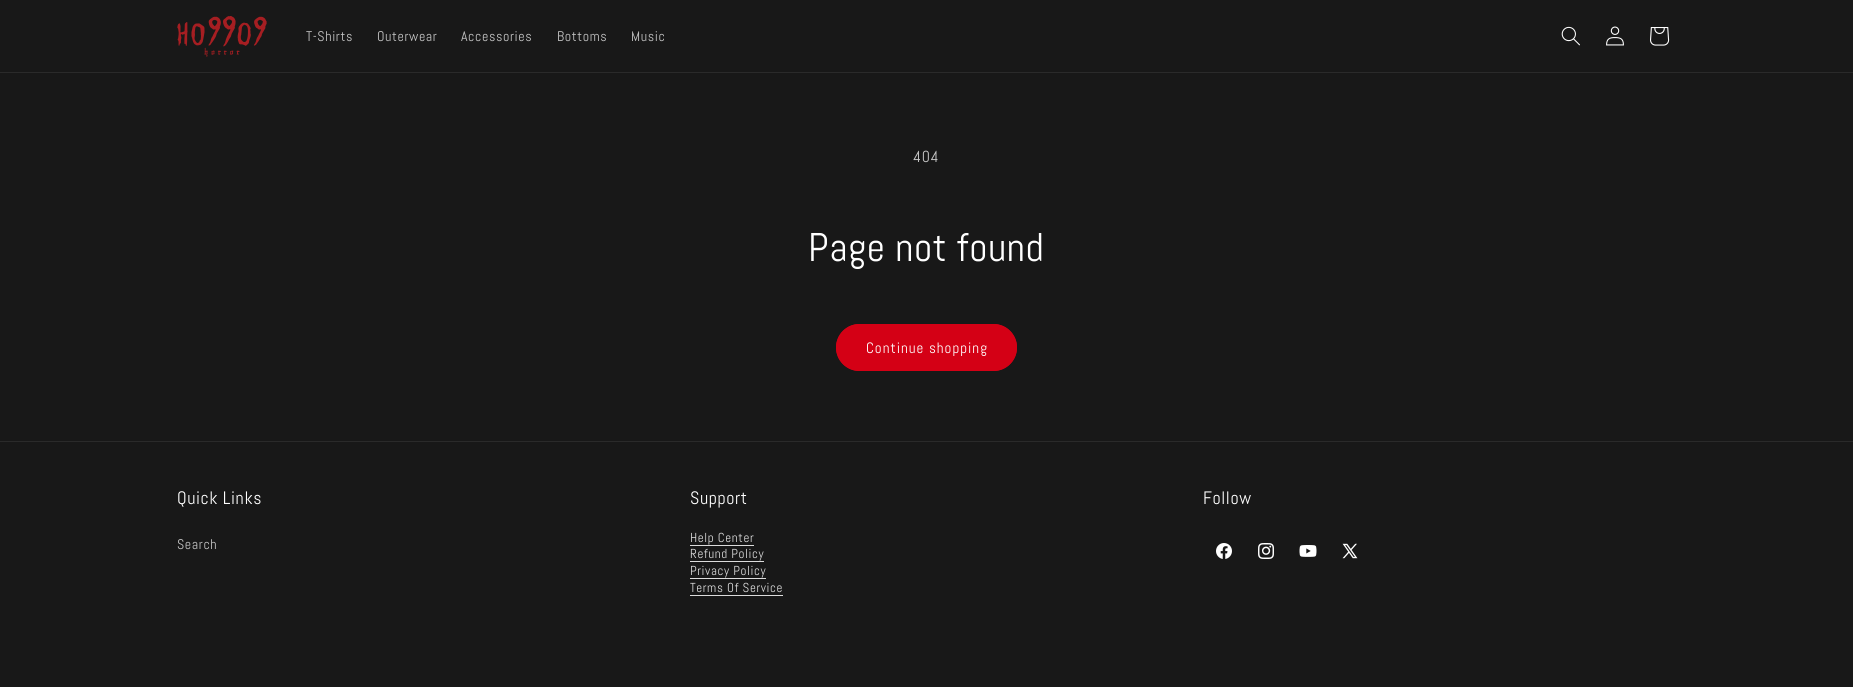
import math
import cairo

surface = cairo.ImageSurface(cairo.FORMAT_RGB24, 1853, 687)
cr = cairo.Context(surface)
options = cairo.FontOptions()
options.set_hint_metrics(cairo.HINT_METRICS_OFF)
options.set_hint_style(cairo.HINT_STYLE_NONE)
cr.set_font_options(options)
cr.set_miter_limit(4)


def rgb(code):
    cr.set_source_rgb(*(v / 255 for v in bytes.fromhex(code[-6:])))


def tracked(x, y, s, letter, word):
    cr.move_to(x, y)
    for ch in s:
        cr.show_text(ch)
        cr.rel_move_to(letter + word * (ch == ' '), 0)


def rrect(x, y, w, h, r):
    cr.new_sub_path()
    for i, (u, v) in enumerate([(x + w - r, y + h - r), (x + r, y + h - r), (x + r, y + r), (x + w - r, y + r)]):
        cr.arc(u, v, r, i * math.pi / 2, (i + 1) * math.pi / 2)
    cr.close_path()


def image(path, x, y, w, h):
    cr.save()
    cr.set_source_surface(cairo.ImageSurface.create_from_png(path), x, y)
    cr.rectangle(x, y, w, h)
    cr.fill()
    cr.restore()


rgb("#181818")
cr.paint()
rgb("#2a2a2a")
cr.rectangle(0, 72, 1853, 1)
cr.fill()
image("img/1.png", 177, 16, 90, 41)
image("img/2.png", 1561, 26, 19, 20)
image("img/3.png", 1606, 26, 18, 20)
image("img/4.png", 1650, 27, 20, 19)
rgb("#d40015")
rrect(836, 324, 181, 47, 23.5)
cr.fill()
rrect(836.5, 324.5, 180, 46, 23)
cr.set_line_width(1)
cr.stroke()
for x, y, w, h, color in [
    (0, 441, 1853, 1, "#2a2a2a"),
    (690, 545, 64, 1, "#dcdcdc"),
    (690, 561, 74, 1, "#dcdcdc"),
    (690, 578, 76, 1, "#dcdcdc"),
    (690, 595, 93, 1, "#dcdcdc"),
]:
    rgb(color)
    cr.rectangle(x, y, w, h)
    cr.fill()
image("img/5.png", 1216, 543, 16, 16)
image("img/6.png", 1258, 543, 16, 16)
image("img/7.png", 1299, 545, 18, 12)
image("img/8.png", 1342, 543, 16, 16)
cr.select_font_face("Abel")
cr.set_font_size(14)
rgb("#c5c5c5")
for x, y, s in [
    (306, 41, "T-Shirts"),
    (377, 41, "Outerwear"),
    (461, 41, "Accessories"),
    (557, 41, "Bottoms"),
    (631, 41, "Music"),
]:
    tracked(x, y, s, 0.6, 0)
cr.set_font_size(16)
tracked(913, 162, "404", 0.6, 0)
cr.set_font_size(40)
rgb("#ffffff")
tracked(808, 261, "Page not found", 0.6, 0)
cr.set_font_size(15)
tracked(866, 353, "Continue shopping", 1, 0)
cr.set_font_size(18)
tracked(177, 504, "Quick Links", 0.6, 0)
cr.set_font_size(14)
rgb("#c5c5c5")
tracked(177, 549, "Search", 0.6, 0)
cr.set_font_size(18)
rgb("#ffffff")
tracked(690, 504, "Support", 0.6, 0)
cr.set_font_size(13)
rgb("#dcdcdc")
for x, y, s in [
    (690, 542, "Help Center"),
    (690, 558, "Refund Policy"),
    (690, 575, "Privacy Policy"),
    (690, 592, "Terms Of Service"),
]:
    tracked(x, y, s, 0.6, 0)
cr.set_font_size(18)
rgb("#ffffff")
tracked(1203, 504, "Follow", 0.6, 0)
surface.write_to_png("page.png")
